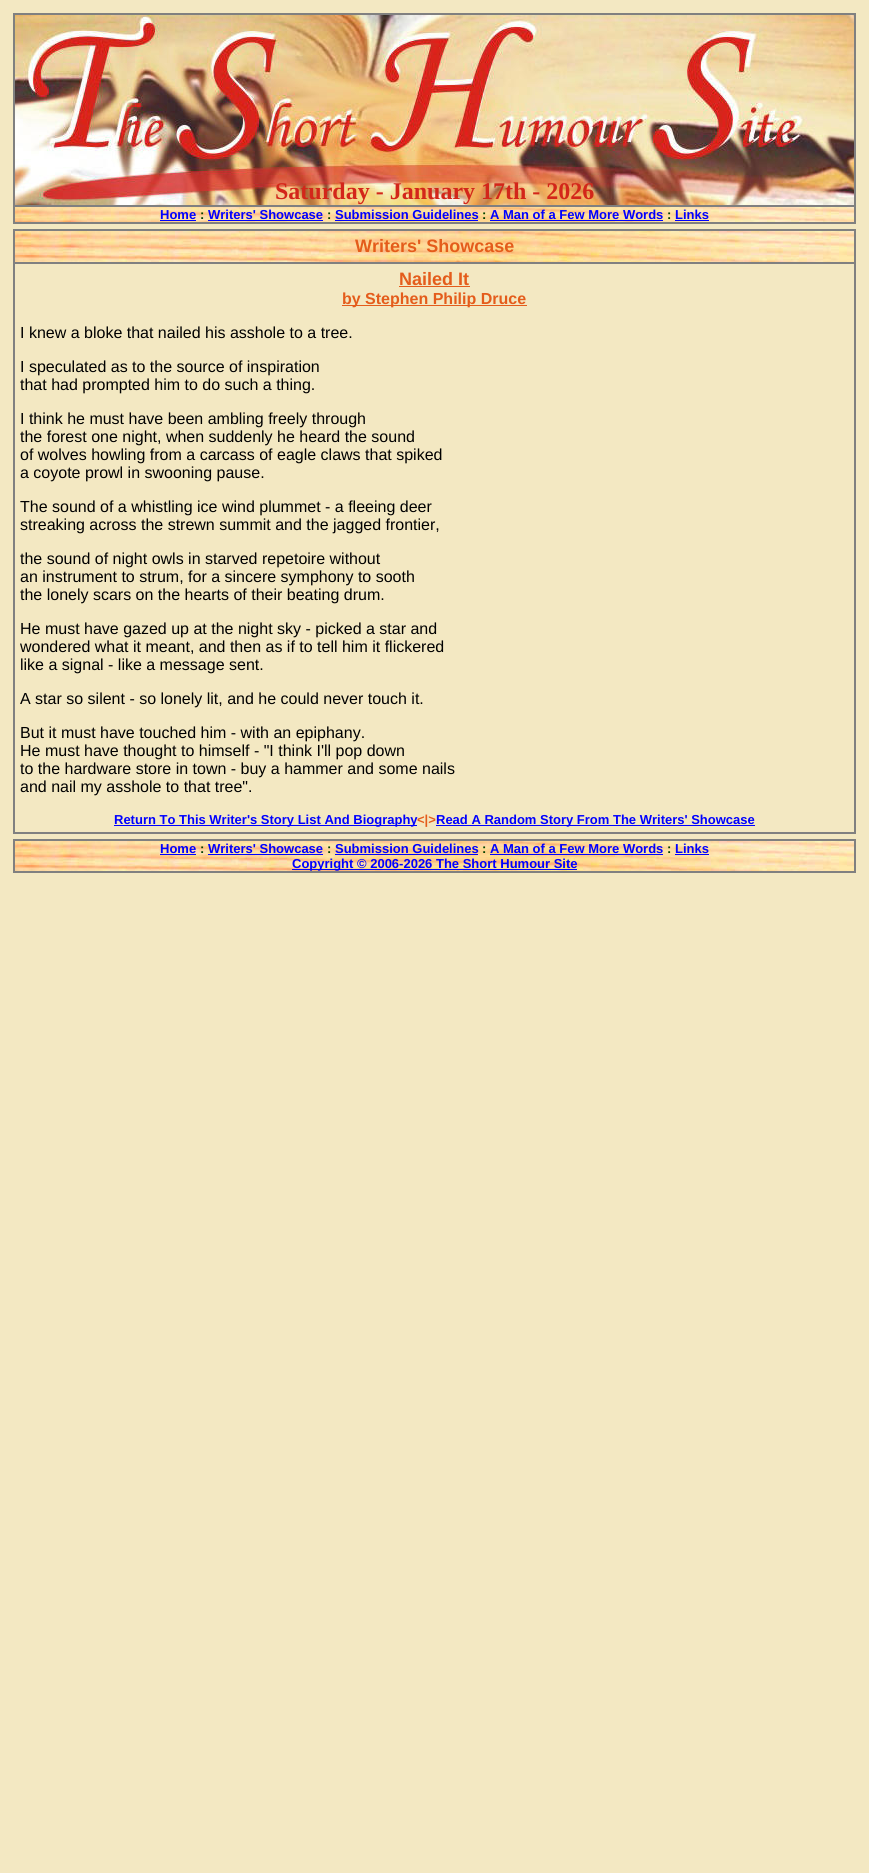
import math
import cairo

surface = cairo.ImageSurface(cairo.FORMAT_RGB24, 869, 1873)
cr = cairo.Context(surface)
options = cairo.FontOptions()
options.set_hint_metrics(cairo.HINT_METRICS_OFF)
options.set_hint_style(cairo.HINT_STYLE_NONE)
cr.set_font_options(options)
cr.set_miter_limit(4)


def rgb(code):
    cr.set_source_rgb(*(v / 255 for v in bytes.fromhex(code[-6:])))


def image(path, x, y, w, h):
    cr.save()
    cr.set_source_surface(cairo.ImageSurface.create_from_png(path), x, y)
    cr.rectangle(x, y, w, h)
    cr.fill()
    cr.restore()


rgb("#f3e8c2")
cr.paint()
cr.rectangle(13.5, 13.5, 842, 210)
rgb("#808080")
cr.set_line_width(1)
cr.stroke()
image("img/1.png", 15, 15, 839, 190)
cr.rectangle(14.5, 14.5, 840, 191)
cr.stroke()
image("img/2.png", 15, 207, 839, 15)
cr.rectangle(14.5, 206.5, 840, 16)
cr.stroke()
for x, y, w, h, color in [
    (160, 220, 36, 1, "#0000ff"),
    (208, 220, 115, 1, "#0000ff"),
    (335, 220, 143, 1, "#0000ff"),
    (490, 220, 173, 1, "#0000ff"),
    (675, 220, 34, 1, "#0000ff"),
]:
    rgb(color)
    cr.rectangle(x, y, w, h)
    cr.fill()
cr.rectangle(13.5, 229.5, 842, 604)
rgb("#808080")
cr.stroke()
image("img/3.png", 15, 231, 839, 31)
cr.rectangle(14.5, 230.5, 840, 32)
cr.stroke()
cr.rectangle(14.5, 263.5, 840, 569)
cr.stroke()
for x, y, w, h, color in [
    (399, 286, 71, 1, "#e45c1b"),
    (342, 305, 185, 1, "#e45c1b"),
    (114, 825, 303, 1, "#0000ff"),
    (436, 825, 319, 1, "#0000ff"),
]:
    rgb(color)
    cr.rectangle(x, y, w, h)
    cr.fill()
cr.rectangle(13.5, 839.5, 842, 33)
rgb("#808080")
cr.stroke()
image("img/4.png", 15, 841, 839, 30)
cr.rectangle(14.5, 840.5, 840, 31)
cr.stroke()
for x, y, w, h, color in [
    (160, 854, 36, 1, "#0000ff"),
    (208, 854, 115, 1, "#0000ff"),
    (335, 854, 143, 1, "#0000ff"),
    (490, 854, 173, 1, "#0000ff"),
    (675, 854, 34, 1, "#0000ff"),
    (292, 869, 285, 1, "#0000ff"),
]:
    rgb(color)
    cr.rectangle(x, y, w, h)
    cr.fill()
cr.select_font_face("Liberation Serif", cairo.FONT_SLANT_NORMAL, cairo.FONT_WEIGHT_BOLD)
cr.set_font_size(24)
rgb("#d3261a")
cr.move_to(275, 199)
cr.show_text("Saturday - January 17th - 2026")
cr.select_font_face("Liberation Sans", cairo.FONT_SLANT_NORMAL, cairo.FONT_WEIGHT_BOLD)
cr.set_font_size(13)
rgb("#0000ff")
cr.move_to(160, 219)
cr.show_text("Home")
rgb("#004000")
cr.move_to(200, 219)
cr.show_text(":")
rgb("#0000ff")
cr.move_to(208, 219)
cr.show_text("Writers' Showcase")
rgb("#004000")
cr.move_to(327, 219)
cr.show_text(":")
rgb("#0000ff")
cr.move_to(335, 219)
cr.show_text("Submission Guidelines")
rgb("#004000")
cr.move_to(482, 219)
cr.show_text(":")
rgb("#0000ff")
cr.move_to(490, 219)
cr.show_text("A Man of a Few More Words")
rgb("#004000")
cr.move_to(667, 219)
cr.show_text(":")
rgb("#0000ff")
cr.move_to(675, 219)
cr.show_text("Links")
cr.set_font_size(18)
rgb("#e45c1b")
cr.move_to(355, 252)
cr.show_text("Writers' Showcase")
cr.move_to(399, 285)
cr.show_text("Nailed It")
cr.set_font_size(16)
cr.move_to(342, 304)
cr.show_text("by Stephen Philip Druce")
cr.select_font_face("Liberation Sans")
rgb("#000000")
for x, y, s in [
    (20, 338, "I knew a bloke that nailed his asshole to a tree."),
    (20, 372, "I speculated as to the source of inspiration"),
    (20, 390, "that had prompted him to do such a thing."),
    (20, 424, "I think he must have been ambling freely through"),
    (20, 442, "the forest one night, when suddenly he heard the sound"),
    (20, 460, "of wolves howling from a carcass of eagle claws that spiked"),
    (20, 478, "a coyote prowl in swooning pause."),
    (20, 512, "The sound of a whistling ice wind plummet - a fleeing deer"),
    (20, 530, "streaking across the strewn summit and the jagged frontier,"),
    (20, 564, "the sound of night owls in starved repetoire without"),
    (20, 582, "an instrument to strum, for a sincere symphony to sooth"),
    (20, 600, "the lonely scars on the hearts of their beating drum."),
    (20, 634, "He must have gazed up at the night sky - picked a star and"),
    (20, 652, "wondered what it meant, and then as if to tell him it flickered"),
    (20, 670, "like a signal - like a message sent."),
    (20, 704, "A star so silent - so lonely lit, and he could never touch it."),
    (20, 738, "But it must have touched him - with an epiphany."),
    (20, 756, "He must have thought to himself - \"I think I'll pop down"),
    (20, 774, "to the hardware store in town - buy a hammer and some nails"),
    (20, 792, "and nail my asshole to that tree\"."),
]:
    cr.move_to(x, y)
    cr.show_text(s)
cr.select_font_face("Liberation Sans", cairo.FONT_SLANT_NORMAL, cairo.FONT_WEIGHT_BOLD)
cr.set_font_size(13)
rgb("#0000ff")
cr.move_to(114, 824)
cr.show_text("Return To This Writer's Story List And Biography")
rgb("#e45c1b")
cr.move_to(417, 824)
cr.show_text("<|>")
rgb("#0000ff")
cr.move_to(436, 824)
cr.show_text("Read A Random Story From The Writers' Showcase")
cr.move_to(160, 853)
cr.show_text("Home")
rgb("#004000")
cr.move_to(200, 853)
cr.show_text(":")
rgb("#0000ff")
cr.move_to(208, 853)
cr.show_text("Writers' Showcase")
rgb("#004000")
cr.move_to(327, 853)
cr.show_text(":")
rgb("#0000ff")
cr.move_to(335, 853)
cr.show_text("Submission Guidelines")
rgb("#004000")
cr.move_to(482, 853)
cr.show_text(":")
rgb("#0000ff")
cr.move_to(490, 853)
cr.show_text("A Man of a Few More Words")
rgb("#004000")
cr.move_to(667, 853)
cr.show_text(":")
rgb("#0000ff")
cr.move_to(675, 853)
cr.show_text("Links")
cr.move_to(292, 868)
cr.show_text("Copyright © 2006-2026 The Short Humour Site")
surface.write_to_png("page.png")
